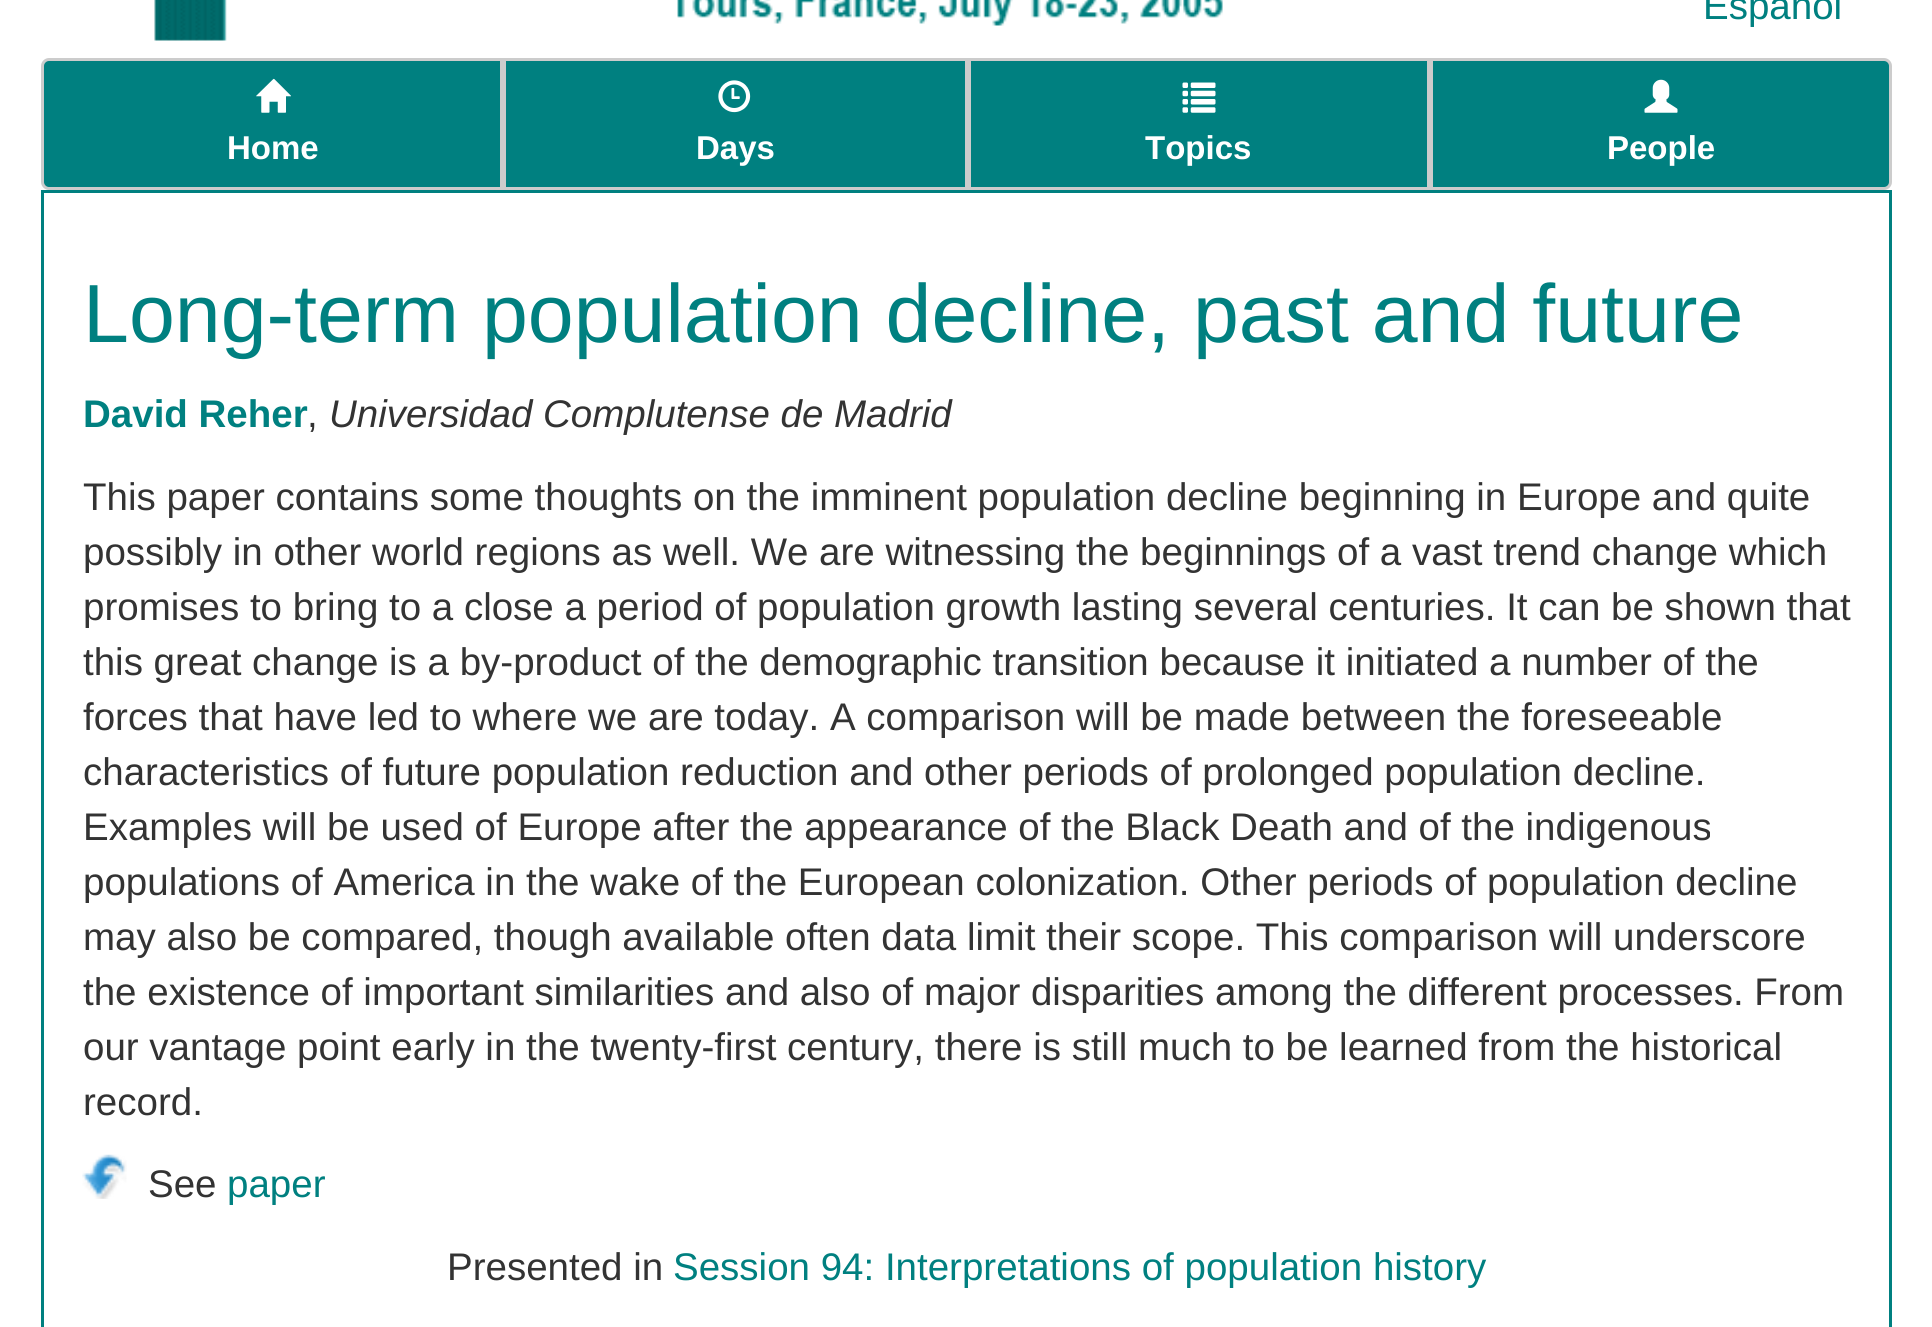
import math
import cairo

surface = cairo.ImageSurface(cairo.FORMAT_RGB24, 1932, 1327)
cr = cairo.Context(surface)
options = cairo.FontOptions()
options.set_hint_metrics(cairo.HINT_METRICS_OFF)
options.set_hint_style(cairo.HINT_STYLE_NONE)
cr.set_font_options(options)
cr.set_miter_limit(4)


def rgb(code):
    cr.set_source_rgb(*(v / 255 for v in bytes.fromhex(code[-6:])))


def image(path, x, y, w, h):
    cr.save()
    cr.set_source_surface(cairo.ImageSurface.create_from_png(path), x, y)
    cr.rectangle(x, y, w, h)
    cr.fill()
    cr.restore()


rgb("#ffffff")
cr.paint()
image("img/1.png", 154, 0, 1069, 41)
rgb("#008080")
cr.new_path()
cr.move_to(49, 59.5)
cr.line_to(501.5, 59.5)
cr.line_to(501.5, 188.5)
cr.line_to(49, 188.5)
cr.curve_to(45.5, 188.5, 42.5, 185.5, 42.5, 182)
cr.line_to(42.5, 66)
cr.curve_to(42.5, 62.5, 45.5, 59.5, 49, 59.5)
cr.close_path()
cr.fill_preserve()
rgb("#cccccc")
cr.set_line_width(3)
cr.stroke()
image("img/2.png", 256, 78, 35, 35)
rgb("#008080")
cr.rectangle(504.5, 59.5, 462, 129)
cr.fill_preserve()
rgb("#cccccc")
cr.stroke()
image("img/3.png", 718, 80, 33, 33)
rgb("#008080")
cr.rectangle(969.5, 59.5, 459, 129)
cr.fill_preserve()
rgb("#cccccc")
cr.stroke()
image("img/4.png", 1182, 82, 34, 31)
rgb("#008080")
cr.new_path()
cr.move_to(1431.5, 59.5)
cr.line_to(1884, 59.5)
cr.curve_to(1887.5, 59.5, 1890.5, 62.5, 1890.5, 66)
cr.line_to(1890.5, 182)
cr.curve_to(1890.5, 185.5, 1887.5, 188.5, 1884, 188.5)
cr.line_to(1431.5, 188.5)
cr.close_path()
cr.fill_preserve()
rgb("#cccccc")
cr.stroke()
image("img/5.png", 1644, 79, 34, 34)
cr.rectangle(42.5, 191.5, 1848, 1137)
rgb("#008080")
cr.stroke()
image("img/6.png", 82, 1154, 45, 45)
cr.select_font_face("Liberation Sans")
cr.set_font_size(38.5)
cr.move_to(1703, 19)
cr.show_text("Español")
cr.select_font_face("Liberation Sans", cairo.FONT_SLANT_NORMAL, cairo.FONT_WEIGHT_BOLD)
cr.set_font_size(33)
rgb("#ffffff")
for x, y, s in [
    (227, 159, "Home"),
    (696, 159, "Days"),
    (1145, 159, "Topics"),
    (1607, 159, "People"),
]:
    cr.move_to(x, y)
    cr.show_text(s)
cr.select_font_face("Liberation Sans")
cr.set_font_size(82.5)
rgb("#008080")
cr.move_to(83, 342)
cr.show_text("Long-term population decline, past and future")
cr.select_font_face("Liberation Sans", cairo.FONT_SLANT_NORMAL, cairo.FONT_WEIGHT_BOLD)
cr.set_font_size(38.5)
cr.move_to(83, 427)
cr.show_text("David Reher")
cr.select_font_face("Liberation Sans")
rgb("#333333")
cr.move_to(307, 427)
cr.show_text(",")
cr.select_font_face("Liberation Sans", cairo.FONT_SLANT_ITALIC)
cr.move_to(329, 427)
cr.show_text("Universidad Complutense de Madrid")
cr.select_font_face("Liberation Sans")
for x, y, s in [
    (83, 510, "This paper contains some thoughts on the imminent population decline beginning in Europe and quite"),
    (83, 565, "possibly in other world regions as well. We are witnessing the beginnings of a vast trend change which"),
    (83, 620, "promises to bring to a close a period of population growth lasting several centuries. It can be shown that"),
    (83, 675, "this great change is a by-product of the demographic transition because it initiated a number of the"),
    (83, 730, "forces that have led to where we are today. A comparison will be made between the foreseeable"),
    (83, 785, "characteristics of future population reduction and other periods of prolonged population decline."),
    (83, 840, "Examples will be used of Europe after the appearance of the Black Death and of the indigenous"),
    (83, 895, "populations of America in the wake of the European colonization. Other periods of population decline"),
    (83, 950, "may also be compared, though available often data limit their scope. This comparison will underscore"),
    (83, 1005, "the existence of important similarities and also of major disparities among the different processes. From"),
    (83, 1060, "our vantage point early in the twenty-first century, there is still much to be learned from the historical"),
    (83, 1115, "record."),
    (148, 1197, "See"),
]:
    cr.move_to(x, y)
    cr.show_text(s)
rgb("#008080")
cr.move_to(227, 1197)
cr.show_text("paper")
rgb("#333333")
cr.move_to(447, 1280)
cr.show_text("Presented in")
rgb("#008080")
cr.move_to(673, 1280)
cr.show_text("Session 94: Interpretations of population history")
surface.write_to_png("page.png")
